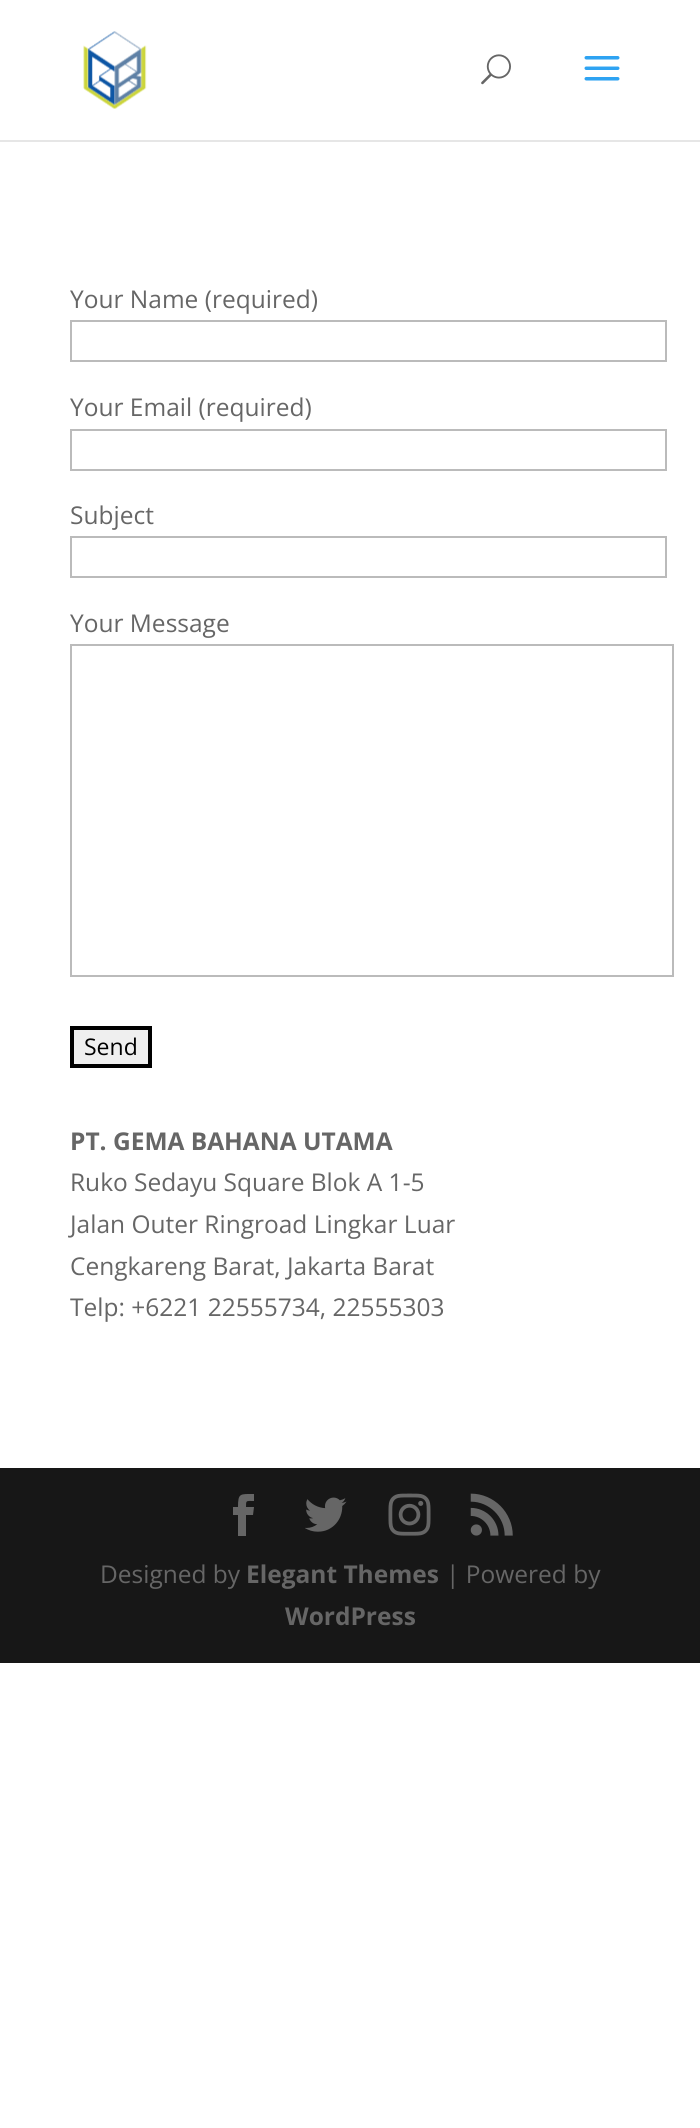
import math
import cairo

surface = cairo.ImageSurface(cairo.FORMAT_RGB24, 700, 2128)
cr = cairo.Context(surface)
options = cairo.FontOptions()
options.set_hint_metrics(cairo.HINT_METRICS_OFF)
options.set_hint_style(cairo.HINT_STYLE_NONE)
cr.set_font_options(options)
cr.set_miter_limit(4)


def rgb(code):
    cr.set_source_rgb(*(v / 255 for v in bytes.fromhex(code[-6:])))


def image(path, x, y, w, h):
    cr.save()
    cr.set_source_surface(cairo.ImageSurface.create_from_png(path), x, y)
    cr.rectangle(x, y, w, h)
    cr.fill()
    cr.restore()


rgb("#ffffff")
cr.paint()
rgb("#e6e6e6")
cr.rectangle(0, 140, 700, 2)
cr.fill()
image("img/1.png", 83, 31, 64, 78)
image("img/2.png", 481, 54, 30, 31)
image("img/3.png", 584, 56, 36, 25)
cr.rectangle(71, 321, 595, 40)
rgb("#bbbbbb")
cr.stroke()
cr.rectangle(71, 430, 595, 40)
cr.stroke()
cr.rectangle(71, 537, 595, 40)
cr.stroke()
cr.rectangle(71, 645, 602, 331)
cr.stroke()
rgb("#efefef")
cr.rectangle(72, 1028, 78, 38)
cr.fill_preserve()
rgb("#000000")
cr.set_line_width(4)
cr.stroke()
rgb("#171717")
cr.rectangle(0, 1468, 700, 195)
cr.fill()
rgb("#666666")
cr.new_path()
cr.move_to(238, 1536)
cr.line_to(246, 1536)
cr.line_to(246, 1515)
cr.line_to(253, 1515)
cr.line_to(254, 1507)
cr.line_to(246, 1507)
cr.curve_to(246, 1500, 246, 1501, 254, 1501)
cr.line_to(254, 1494)
cr.curve_to(240, 1494, 238, 1493, 238, 1507)
cr.line_to(233, 1507)
cr.line_to(233, 1515)
cr.line_to(238, 1515)
cr.close_path()
cr.fill()
image("img/4.png", 305, 1497, 42, 35)
image("img/5.png", 388, 1493, 43, 43)
image("img/6.png", 470, 1493, 43, 43)
cr.select_font_face("Open Sans")
cr.set_font_size(24.5)
for x, y, s in [
    (70, 308, "Your Name (required)"),
    (70, 416, "Your Email (required)"),
    (70, 524, "Subject"),
    (70, 632, "Your Message"),
]:
    cr.move_to(x, y)
    cr.show_text(s)
cr.set_font_size(23)
rgb("#000000")
cr.move_to(84, 1055)
cr.show_text("Send")
cr.select_font_face("Open Sans", cairo.FONT_SLANT_NORMAL, cairo.FONT_WEIGHT_BOLD)
cr.set_font_size(24.5)
rgb("#666666")
cr.move_to(70, 1150)
cr.show_text("PT. GEMA BAHANA UTAMA")
cr.select_font_face("Open Sans")
for x, y, s in [
    (70, 1191, "Ruko Sedayu Square Blok A 1-5"),
    (70, 1233, "Jalan Outer Ringroad Lingkar Luar"),
    (70, 1275, "Cengkareng Barat, Jakarta Barat"),
    (70, 1316, "Telp: +6221 22555734, 22555303"),
    (100, 1583, "Designed by"),
]:
    cr.move_to(x, y)
    cr.show_text(s)
cr.select_font_face("Open Sans", cairo.FONT_SLANT_NORMAL, cairo.FONT_WEIGHT_BOLD)
cr.move_to(246, 1583)
cr.show_text("Elegant Themes")
cr.select_font_face("Open Sans")
cr.move_to(446, 1583)
cr.show_text("| Powered by")
cr.select_font_face("Open Sans", cairo.FONT_SLANT_NORMAL, cairo.FONT_WEIGHT_BOLD)
cr.move_to(285, 1625)
cr.show_text("WordPress")
surface.write_to_png("page.png")
